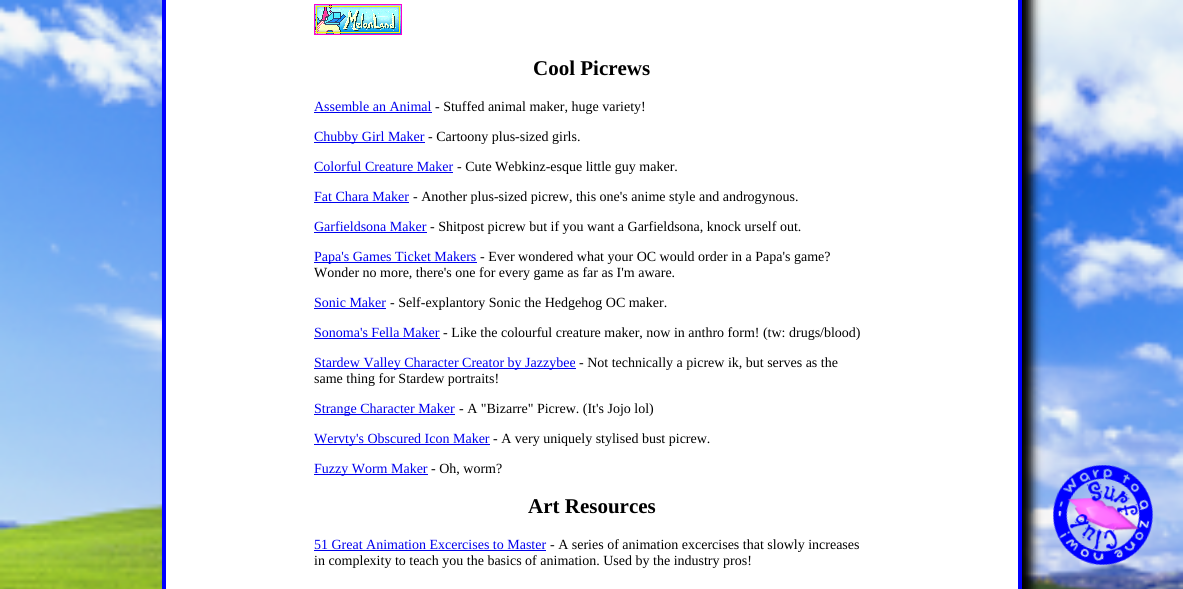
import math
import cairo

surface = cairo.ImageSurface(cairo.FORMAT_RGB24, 1183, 589)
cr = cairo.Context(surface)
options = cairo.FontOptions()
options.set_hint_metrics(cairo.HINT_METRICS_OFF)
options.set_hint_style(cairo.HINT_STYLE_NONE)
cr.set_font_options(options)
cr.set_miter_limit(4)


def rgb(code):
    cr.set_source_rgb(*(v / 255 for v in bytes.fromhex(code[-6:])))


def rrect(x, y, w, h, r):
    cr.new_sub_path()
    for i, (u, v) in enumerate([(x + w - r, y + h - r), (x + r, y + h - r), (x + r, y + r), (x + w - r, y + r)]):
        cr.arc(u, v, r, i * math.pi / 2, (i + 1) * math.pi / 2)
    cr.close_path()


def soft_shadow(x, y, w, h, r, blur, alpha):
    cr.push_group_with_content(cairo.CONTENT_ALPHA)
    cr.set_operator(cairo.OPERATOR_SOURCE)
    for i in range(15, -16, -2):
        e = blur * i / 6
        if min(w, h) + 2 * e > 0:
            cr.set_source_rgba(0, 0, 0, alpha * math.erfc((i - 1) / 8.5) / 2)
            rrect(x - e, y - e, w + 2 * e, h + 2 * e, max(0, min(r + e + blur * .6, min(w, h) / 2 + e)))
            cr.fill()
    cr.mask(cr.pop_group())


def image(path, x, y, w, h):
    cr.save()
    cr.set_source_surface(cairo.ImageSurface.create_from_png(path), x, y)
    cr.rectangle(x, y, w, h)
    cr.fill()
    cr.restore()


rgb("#ffffff")
cr.paint()
image("img/1.png", 0, 0, 1183, 589)
rgb("#000000")
soft_shadow(172, -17, 860, 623, 2, 5, 1)
rgb("#ffffff")
cr.rectangle(164, -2, 856, 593)
cr.fill_preserve()
rgb("#0000ff")
cr.set_line_width(4)
cr.stroke()
image("img/2.png", 314, 4, 88, 31)
for x, y, w, h, color in [
    (314, 112, 118, 1, "#0000ee"),
    (314, 142, 111, 1, "#0000ee"),
    (314, 172, 139, 1, "#0000ee"),
    (314, 202, 95, 1, "#0000ee"),
    (314, 232, 113, 1, "#0000ee"),
    (314, 262, 163, 1, "#0000ee"),
    (314, 308, 72, 1, "#0000ee"),
    (314, 338, 126, 1, "#0000ee"),
    (314, 368, 262, 1, "#0000ee"),
    (314, 414, 141, 1, "#0000ee"),
    (314, 444, 176, 1, "#0000ee"),
    (314, 474, 114, 1, "#0000ee"),
    (314, 550, 232, 1, "#0000ee"),
]:
    rgb(color)
    cr.rectangle(x, y, w, h)
    cr.fill()
image("img/3.png", 1053, 465, 100, 100)
cr.select_font_face("Liberation Serif", cairo.FONT_SLANT_NORMAL, cairo.FONT_WEIGHT_BOLD)
cr.set_font_size(21)
rgb("#000000")
cr.move_to(533, 75)
cr.show_text("Cool Picrews")
cr.select_font_face("Liberation Serif")
cr.set_font_size(14)
rgb("#0000ee")
cr.move_to(314, 111)
cr.show_text("Assemble an Animal")
rgb("#000000")
cr.move_to(435, 111)
cr.show_text("- Stuffed animal maker, huge variety!")
rgb("#0000ee")
cr.move_to(314, 141)
cr.show_text("Chubby Girl Maker")
rgb("#000000")
cr.move_to(428, 141)
cr.show_text("- Cartoony plus-sized girls.")
rgb("#0000ee")
cr.move_to(314, 171)
cr.show_text("Colorful Creature Maker")
rgb("#000000")
cr.move_to(457, 171)
cr.show_text("- Cute Webkinz-esque little guy maker.")
rgb("#0000ee")
cr.move_to(314, 201)
cr.show_text("Fat Chara Maker")
rgb("#000000")
cr.move_to(413, 201)
cr.show_text("- Another plus-sized picrew, this one's anime style and androgynous.")
rgb("#0000ee")
cr.move_to(314, 231)
cr.show_text("Garfieldsona Maker")
rgb("#000000")
cr.move_to(430, 231)
cr.show_text("- Shitpost picrew but if you want a Garfieldsona, knock urself out.")
rgb("#0000ee")
cr.move_to(314, 261)
cr.show_text("Papa's Games Ticket Makers")
rgb("#000000")
cr.move_to(480, 261)
cr.show_text("- Ever wondered what your OC would order in a Papa's game?")
cr.move_to(314, 277)
cr.show_text("Wonder no more, there's one for every game as far as I'm aware.")
rgb("#0000ee")
cr.move_to(314, 307)
cr.show_text("Sonic Maker")
rgb("#000000")
cr.move_to(390, 307)
cr.show_text("- Self-explantory Sonic the Hedgehog OC maker.")
rgb("#0000ee")
cr.move_to(314, 337)
cr.show_text("Sonoma's Fella Maker")
rgb("#000000")
cr.move_to(443, 337)
cr.show_text("- Like the colourful creature maker, now in anthro form! (tw: drugs/blood)")
rgb("#0000ee")
cr.move_to(314, 367)
cr.show_text("Stardew Valley Character Creator by Jazzybee")
rgb("#000000")
cr.move_to(579, 367)
cr.show_text("- Not technically a picrew ik, but serves as the")
cr.move_to(314, 383)
cr.show_text("same thing for Stardew portraits!")
rgb("#0000ee")
cr.move_to(314, 413)
cr.show_text("Strange Character Maker")
rgb("#000000")
cr.move_to(459, 413)
cr.show_text("- A \"Bizarre\" Picrew. (It's Jojo lol)")
rgb("#0000ee")
cr.move_to(314, 443)
cr.show_text("Wervty's Obscured Icon Maker")
rgb("#000000")
cr.move_to(493, 443)
cr.show_text("- A very uniquely stylised bust picrew.")
rgb("#0000ee")
cr.move_to(314, 473)
cr.show_text("Fuzzy Worm Maker")
rgb("#000000")
cr.move_to(431, 473)
cr.show_text("- Oh, worm?")
cr.select_font_face("Liberation Serif", cairo.FONT_SLANT_NORMAL, cairo.FONT_WEIGHT_BOLD)
cr.set_font_size(21)
cr.move_to(528, 513)
cr.show_text("Art Resources")
cr.select_font_face("Liberation Serif")
cr.set_font_size(14)
rgb("#0000ee")
cr.move_to(314, 549)
cr.show_text("51 Great Animation Excercises to Master")
rgb("#000000")
cr.move_to(550, 549)
cr.show_text("- A series of animation excercises that slowly increases")
cr.move_to(314, 565)
cr.show_text("in complexity to teach you the basics of animation. Used by the industry pros!")
surface.write_to_png("page.png")
